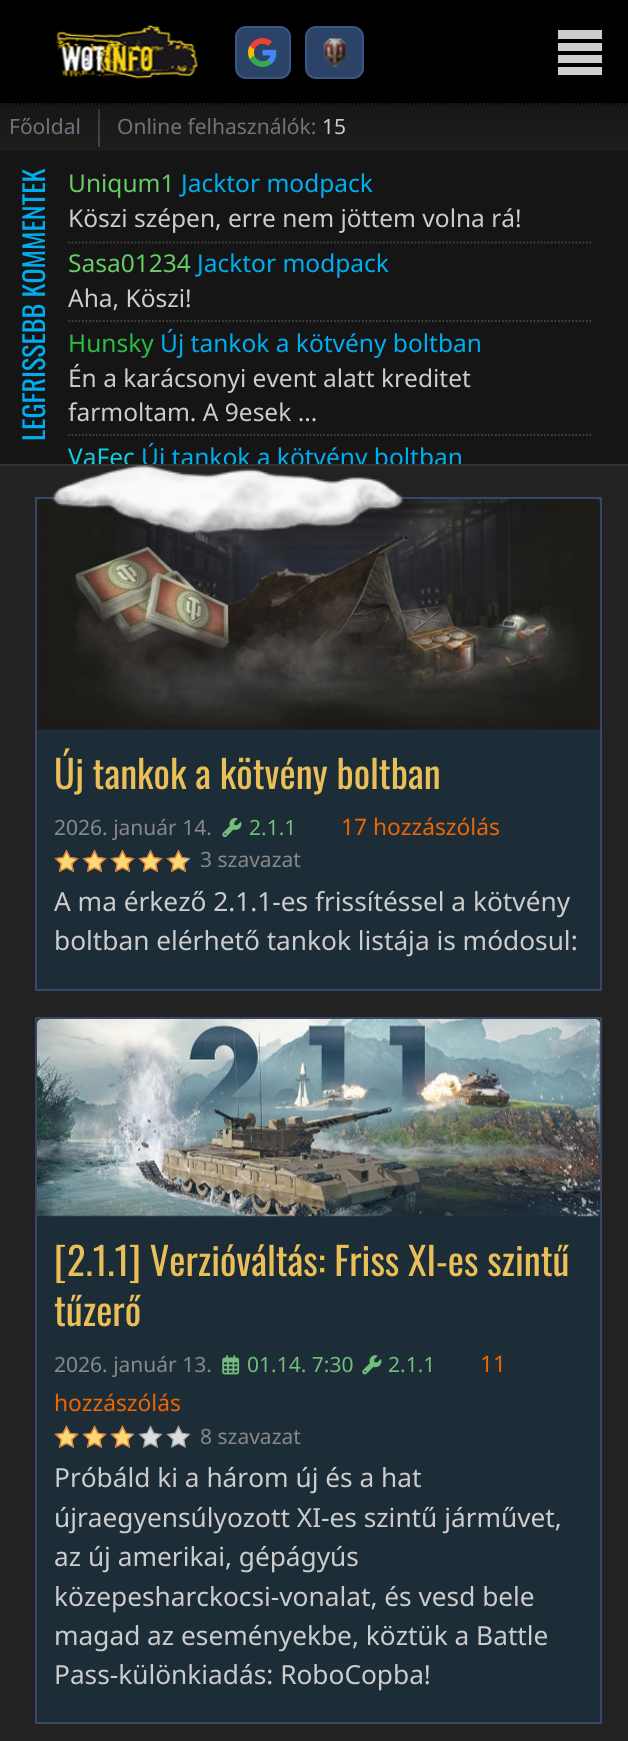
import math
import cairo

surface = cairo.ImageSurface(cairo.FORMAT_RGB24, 628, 1741)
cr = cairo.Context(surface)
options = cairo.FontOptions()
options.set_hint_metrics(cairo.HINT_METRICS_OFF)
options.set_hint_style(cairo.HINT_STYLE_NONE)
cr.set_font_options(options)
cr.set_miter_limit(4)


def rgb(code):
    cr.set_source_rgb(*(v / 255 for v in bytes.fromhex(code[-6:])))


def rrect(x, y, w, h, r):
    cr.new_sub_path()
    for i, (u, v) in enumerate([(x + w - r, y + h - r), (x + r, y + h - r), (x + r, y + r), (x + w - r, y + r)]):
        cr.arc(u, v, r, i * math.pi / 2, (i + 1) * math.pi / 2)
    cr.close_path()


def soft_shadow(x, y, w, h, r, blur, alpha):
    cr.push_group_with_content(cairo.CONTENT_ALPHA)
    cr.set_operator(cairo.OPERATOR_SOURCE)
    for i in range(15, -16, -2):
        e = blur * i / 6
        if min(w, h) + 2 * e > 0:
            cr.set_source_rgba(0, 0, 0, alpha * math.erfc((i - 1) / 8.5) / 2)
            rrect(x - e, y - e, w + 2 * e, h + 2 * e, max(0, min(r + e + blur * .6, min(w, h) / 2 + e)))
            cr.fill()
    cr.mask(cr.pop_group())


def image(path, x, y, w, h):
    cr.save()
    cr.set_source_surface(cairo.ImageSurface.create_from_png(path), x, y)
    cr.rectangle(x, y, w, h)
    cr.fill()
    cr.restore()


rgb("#000000")
cr.paint()
cr.new_path()
cr.move_to(0, 104)
cr.line_to(628, 104)
rgb("#242424")
cr.set_line_width(1.8)
cr.set_dash([1.75, 1.75])
cr.stroke()
for x, y, w, h, color in [
    (0, 105, 628, 46, "#1c1c1b"),
    (98, 109, 2, 38, "#444444"),
    (0, 151, 628, 313, "#151515"),
]:
    rgb(color)
    cr.rectangle(x, y, w, h)
    cr.fill()
cr.save()
cr.rectangle(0, 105, 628, 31)
cr.clip()
rgb("#000000")
soft_shadow(0, 0, 628, 105, 0, 17.5, 0.5)
cr.restore()
image("img/1.png", 56, 25, 142, 54)
rgb("#2b4366")
rrect(236, 27, 54, 51, 10)
cr.fill_preserve()
rgb("#3a5885")
cr.set_line_width(2)
cr.set_dash([])
cr.stroke()
image("img/2.png", 248, 38, 29, 29)
rgb("#2b4366")
rrect(306, 27, 57, 51, 10)
cr.fill_preserve()
rgb("#3a5885")
cr.stroke()
image("img/3.png", 323, 38, 24, 31)
for x, y, w, h, color in [
    (558, 30, 44, 45, "#cccccc"),
    (558, 39, 44, 4, "#000000"),
    (558, 51, 44, 4, "#000000"),
    (558, 63, 44, 4, "#000000"),
    (0, 466, 628, 1275, "#222222"),
    (0, 464, 628, 2, "#333333"),
]:
    rgb(color)
    cr.rectangle(x, y, w, h)
    cr.fill()
cr.new_path()
cr.move_to(68, 242.5)
cr.line_to(593, 242.5)
rgb("#444444")
cr.set_line_width(1.8)
cr.set_dash([1.75, 1.75])
cr.stroke()
cr.new_path()
cr.move_to(68, 321)
cr.line_to(593, 321)
cr.stroke()
cr.new_path()
cr.move_to(68, 435)
cr.line_to(593, 435)
cr.stroke()
rgb("#1d2d38")
cr.rectangle(36, 498, 565, 492)
cr.fill_preserve()
rgb("#3a4669")
cr.set_line_width(2)
cr.set_dash([])
cr.stroke()
image("img/5.png", 37, 499, 564, 231)
image("img/4.png", 52, 465, 351, 69)
image("img/6.png", 222, 817, 20, 21)
image("img/7.png", 54, 849, 25, 24)
image("img/8.png", 54, 849, 25, 24)
image("img/7.png", 82, 849, 25, 24)
image("img/8.png", 82, 849, 25, 24)
image("img/7.png", 110, 849, 25, 24)
image("img/8.png", 110, 849, 25, 24)
image("img/7.png", 138, 849, 25, 24)
image("img/8.png", 138, 849, 25, 24)
image("img/7.png", 166, 849, 25, 24)
image("img/9.png", 166, 849, 20, 24)
rgb("#1d2d38")
cr.rectangle(36, 1018, 565, 705)
cr.fill_preserve()
rgb("#3a4669")
cr.stroke()
image("img/10.png", 37, 1019, 564, 198)
image("img/11.png", 222, 1355, 18, 20)
image("img/12.png", 362, 1355, 20, 20)
image("img/13.png", 54, 1425, 25, 23)
image("img/14.png", 54, 1425, 25, 23)
image("img/13.png", 82, 1425, 25, 23)
image("img/14.png", 82, 1425, 25, 23)
image("img/13.png", 110, 1425, 25, 23)
image("img/15.png", 110, 1425, 20, 23)
image("img/13.png", 138, 1425, 25, 23)
image("img/13.png", 166, 1425, 25, 23)
cr.select_font_face("Noto Sans")
cr.set_font_size(21)
rgb("#6c757d")
cr.move_to(9, 134)
cr.show_text("Főoldal")
cr.move_to(117, 134)
cr.show_text("Online felhasználók:")
rgb("#cccccc")
cr.move_to(322, 134)
cr.show_text("15")
cr.select_font_face("Oswald")
cr.set_font_size(28)
rgb("#00aeef")
cr.save()
cr.translate(45, 441)
cr.rotate(-90 * math.pi / 180)
cr.move_to(0, 0)
cr.show_text("LEGFRISSEBB KOMMENTEK")
cr.restore()
cr.select_font_face("Noto Sans")
cr.set_font_size(24.5)
rgb("#66cc66")
cr.move_to(68, 192)
cr.show_text("Uniqum1")
rgb("#00aeef")
cr.move_to(181, 192)
cr.show_text("Jacktor modpack")
rgb("#cccccc")
cr.move_to(68, 227)
cr.show_text("Köszi szépen, erre nem jöttem volna rá!")
rgb("#66cc66")
cr.move_to(68, 272)
cr.show_text("Sasa01234")
rgb("#00aeef")
cr.move_to(197, 272)
cr.show_text("Jacktor modpack")
rgb("#cccccc")
cr.move_to(68, 307)
cr.show_text("Aha, Köszi!")
rgb("#29bd45")
cr.move_to(68, 352)
cr.show_text("Hunsky")
rgb("#00aeef")
cr.move_to(160, 352)
cr.show_text("Új tankok a kötvény boltban")
rgb("#cccccc")
cr.move_to(68, 387)
cr.show_text("Én a karácsonyi event alatt kreditet")
cr.move_to(68, 421)
cr.show_text("farmoltam. A 9esek ...")
cr.save()
cr.rectangle(0, 151, 628, 313)
cr.clip()
rgb("#0ccee3")
cr.move_to(68, 466)
cr.show_text("VaFec")
rgb("#00aeef")
cr.move_to(141, 466)
cr.show_text("Új tankok a kötvény boltban")
cr.restore()
cr.select_font_face("Oswald")
cr.set_font_size(38.5)
rgb("#ebbf57")
cr.move_to(54, 789)
cr.show_text("Új tankok a kötvény boltban")
cr.select_font_face("Noto Sans")
cr.set_font_size(21)
rgb("#888888")
cr.move_to(54, 835)
cr.show_text("2026. január 14.")
rgb("#71be7d")
cr.move_to(249, 835)
cr.show_text("2.1.1")
cr.set_font_size(22.75)
rgb("#ef6500")
cr.move_to(341, 835)
cr.show_text("17 hozzászólás")
cr.set_font_size(21)
rgb("#888888")
cr.move_to(200, 867)
cr.show_text("3 szavazat")
cr.set_font_size(26.25)
rgb("#cccccc")
cr.move_to(54, 911)
cr.show_text("A ma érkező 2.1.1-es frissítéssel a kötvény")
cr.move_to(54, 950)
cr.show_text("boltban elérhető tankok listája is módosul:")
cr.select_font_face("Oswald")
cr.set_font_size(38.5)
rgb("#ebbf57")
cr.move_to(54, 1276)
cr.show_text("[2.1.1] Verzióváltás: Friss XI-es szintű")
cr.move_to(54, 1326)
cr.show_text("tűzerő")
cr.select_font_face("Noto Sans")
cr.set_font_size(21)
rgb("#888888")
cr.move_to(54, 1372)
cr.show_text("2026. január 13.")
rgb("#71be7d")
cr.move_to(247, 1372)
cr.show_text("01.14. 7:30")
cr.move_to(388, 1372)
cr.show_text("2.1.1")
cr.set_font_size(22.75)
rgb("#ef6500")
cr.move_to(480, 1372)
cr.show_text("11")
cr.move_to(54, 1411)
cr.show_text("hozzászólás")
cr.set_font_size(21)
rgb("#888888")
cr.move_to(200, 1444)
cr.show_text("8 szavazat")
cr.set_font_size(26.25)
rgb("#cccccc")
for x, y, s in [
    (54, 1487, "Próbáld ki a három új és a hat"),
    (54, 1527, "újraegyensúlyozott XI-es szintű járművet,"),
    (54, 1566, "az új amerikai, gépágyús"),
    (54, 1606, "közepesharckocsi-vonalat, és vesd bele"),
    (54, 1645, "magad az eseményekbe, köztük a Battle"),
    (54, 1684, "Pass-különkiadás: RoboCopba!"),
]:
    cr.move_to(x, y)
    cr.show_text(s)
surface.write_to_png("page.png")
